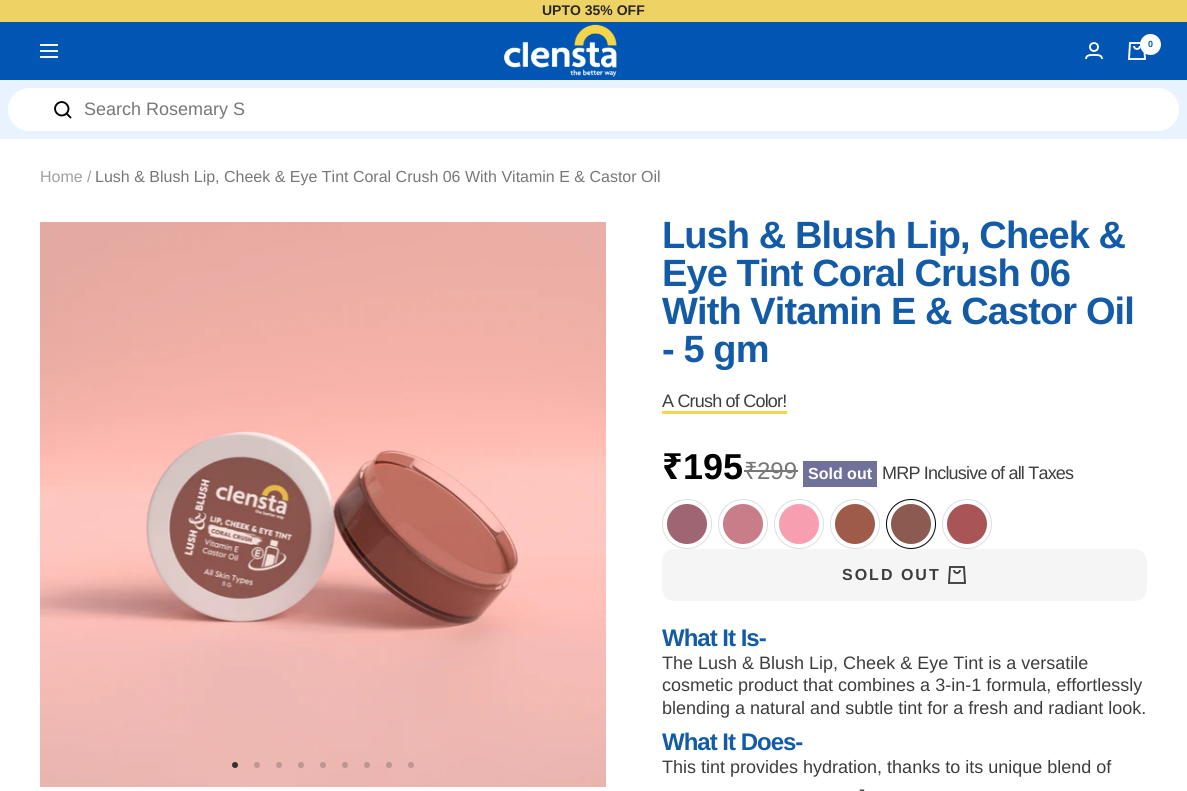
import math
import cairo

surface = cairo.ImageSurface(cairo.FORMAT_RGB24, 1187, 791)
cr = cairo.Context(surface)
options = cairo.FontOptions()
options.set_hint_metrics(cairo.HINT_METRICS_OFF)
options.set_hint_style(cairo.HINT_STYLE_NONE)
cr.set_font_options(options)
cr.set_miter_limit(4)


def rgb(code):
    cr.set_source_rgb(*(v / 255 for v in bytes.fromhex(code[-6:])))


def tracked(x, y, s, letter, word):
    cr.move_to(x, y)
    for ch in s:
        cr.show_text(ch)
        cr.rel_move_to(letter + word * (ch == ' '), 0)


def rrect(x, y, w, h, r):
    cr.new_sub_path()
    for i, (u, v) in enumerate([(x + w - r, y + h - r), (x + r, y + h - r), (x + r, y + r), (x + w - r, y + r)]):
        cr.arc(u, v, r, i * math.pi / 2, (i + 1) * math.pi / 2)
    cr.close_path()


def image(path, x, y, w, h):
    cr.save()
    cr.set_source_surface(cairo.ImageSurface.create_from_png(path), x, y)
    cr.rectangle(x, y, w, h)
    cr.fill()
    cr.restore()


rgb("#ffffff")
cr.paint()
rgb("#eed364")
cr.rectangle(0, 0, 1187, 22)
cr.fill()
rgb("#0056b2")
cr.rectangle(0, 22, 1187, 58)
cr.fill()
cr.new_path()
cr.move_to(40, 45)
cr.line_to(58, 45)
cr.move_to(40, 57)
cr.line_to(58, 57)
cr.close_path()
cr.move_to(40, 51)
cr.line_to(58, 51)
cr.close_path()
rgb("#ffffff")
cr.set_line_width(1.9)
cr.stroke()
image("img/1.png", 503, 24, 114, 53)
cr.arc(1094, 47, 4, 0, 2 * math.pi)
cr.stroke()
cr.new_path()
cr.move_to(1086, 59)
cr.curve_to(1086, 54.5, 1091, 55, 1094, 55)
cr.curve_to(1097, 55, 1102, 54.5, 1102, 59)
cr.stroke()
image("img/2.png", 1128, 42, 18, 18)
cr.arc(1150.5, 44.5, 10.5, 0, 2 * math.pi)
cr.fill()
rgb("#e9f3ff")
cr.rectangle(0, 80, 1187, 59)
cr.fill()
rgb("#ffffff")
rrect(8, 88, 1171, 43, 21.5)
cr.fill()
cr.new_path()
cr.move_to(66.5, 113.5)
cr.curve_to(72.5, 107, 63.5, 98, 57, 104)
cr.curve_to(51, 110.5, 60, 119.5, 66.5, 113.5)
cr.close_path()
cr.move_to(66.5, 113.5)
cr.line_to(71, 118)
rgb("#000000")
cr.stroke()
image("img/3.png", 40, 222, 566, 565)
rgb("#333333")
cr.arc(235, 765, 3, 0, 2 * math.pi)
cr.fill()
rgb("#bf9792")
cr.arc(257, 765, 3, 0, 2 * math.pi)
cr.fill()
cr.arc(279, 765, 3, 0, 2 * math.pi)
cr.fill()
rgb("#be9691")
cr.arc(301, 765, 3, 0, 2 * math.pi)
cr.fill()
cr.arc(323, 765, 3, 0, 2 * math.pi)
cr.fill()
rgb("#be9592")
cr.arc(345, 765, 3, 0, 2 * math.pi)
cr.fill()
cr.set_source_rgba(0.2, 0.2, 0.2, 0.25)
cr.arc(367, 765, 3, 0, 2 * math.pi)
cr.fill()
cr.arc(389, 765, 3, 0, 2 * math.pi)
cr.fill()
rgb("#be9592")
cr.arc(411, 765, 3, 0, 2 * math.pi)
cr.fill()
for x, y, w, h, color in [
    (662, 411, 125, 3, "#f6d44d"),
    (744, 470, 54, 2, "#777777"),
    (803, 461, 74, 26, "#6f719b"),
]:
    rgb(color)
    cr.rectangle(x, y, w, h)
    cr.fill()
cr.arc(687, 524, 24.5, 0, 2 * math.pi)
rgb("#dddddd")
cr.set_line_width(1)
cr.stroke()
rgb("#9f6572")
cr.arc(687, 524, 20, 0, 2 * math.pi)
cr.fill()
cr.arc(743, 524, 24.5, 0, 2 * math.pi)
rgb("#dddddd")
cr.stroke()
rgb("#c87d88")
cr.arc(743, 524, 20, 0, 2 * math.pi)
cr.fill()
cr.arc(799, 524, 24.5, 0, 2 * math.pi)
rgb("#dddddd")
cr.stroke()
rgb("#f79fb1")
cr.arc(799, 524, 20, 0, 2 * math.pi)
cr.fill()
cr.arc(855, 524, 24.5, 0, 2 * math.pi)
rgb("#dddddd")
cr.stroke()
rgb("#9f5b49")
cr.arc(855, 524, 20, 0, 2 * math.pi)
cr.fill()
cr.arc(911, 524, 24.5, 0, 2 * math.pi)
rgb("#000000")
cr.stroke()
rgb("#8d5a51")
cr.arc(911, 524, 20, 0, 2 * math.pi)
cr.fill()
cr.arc(967, 524, 24.5, 0, 2 * math.pi)
rgb("#dddddd")
cr.stroke()
rgb("#a95457")
cr.arc(967, 524, 20, 0, 2 * math.pi)
cr.fill()
rgb("#f5f5f5")
rrect(662, 549, 485, 52, 12)
cr.fill()
image("img/4.png", 948, 566, 18, 18)
cr.select_font_face("Liberation Sans", cairo.FONT_SLANT_NORMAL, cairo.FONT_WEIGHT_BOLD)
cr.set_font_size(14)
rgb("#282828")
cr.move_to(542, 15)
cr.show_text("UPTO 35% OFF")
cr.set_font_size(9)
rgb("#0056b2")
cr.move_to(1148, 47)
cr.show_text("0")
cr.select_font_face("Liberation Sans")
cr.set_font_size(18)
rgb("#777777")
cr.move_to(84, 115)
cr.show_text("Search Rosemary S")
cr.set_font_size(16)
rgb("#a0a0a0")
cr.move_to(40, 182)
cr.show_text("Home")
cr.move_to(87, 182)
cr.show_text("/")
rgb("#777777")
cr.move_to(95, 182)
cr.show_text("Lush & Blush Lip, Cheek & Eye Tint Coral Crush 06 With Vitamin E & Castor Oil")
cr.select_font_face("Liberation Sans", cairo.FONT_SLANT_NORMAL, cairo.FONT_WEIGHT_BOLD)
cr.set_font_size(38)
rgb("#135ba7")
for x, y, s in [
    (662, 248, "Lush & Blush Lip, Cheek &"),
    (662, 286, "Eye Tint Coral Crush 06"),
    (662, 324, "With Vitamin E & Castor Oil"),
    (662, 362, "- 5 gm"),
]:
    tracked(x, y, s, -0.9, 0)
cr.select_font_face("Liberation Sans")
cr.set_font_size(18)
rgb("#3d3d3d")
tracked(662, 407, "A Crush of Color!", -0.8, 0)
cr.select_font_face("Noto Sans", cairo.FONT_SLANT_NORMAL, cairo.FONT_WEIGHT_BOLD)
cr.set_font_size(36)
rgb("#000000")
cr.move_to(662, 479)
cr.show_text("₹")
cr.select_font_face("Liberation Sans", cairo.FONT_SLANT_NORMAL, cairo.FONT_WEIGHT_BOLD)
cr.move_to(683, 479)
cr.show_text("195")
cr.select_font_face("Noto Sans")
cr.set_font_size(24)
rgb("#777777")
cr.move_to(744, 479)
cr.show_text("₹")
cr.select_font_face("Liberation Sans")
cr.move_to(757, 479)
cr.show_text("299")
cr.select_font_face("Liberation Sans", cairo.FONT_SLANT_NORMAL, cairo.FONT_WEIGHT_BOLD)
cr.set_font_size(16)
rgb("#ffffff")
cr.move_to(808, 479)
cr.show_text("Sold out")
cr.select_font_face("Liberation Sans")
cr.set_font_size(18)
rgb("#3d3d3d")
tracked(882, 479, "MRP Inclusive of all Taxes", -0.8, 0)
cr.select_font_face("Liberation Sans", cairo.FONT_SLANT_NORMAL, cairo.FONT_WEIGHT_BOLD)
cr.set_font_size(16)
tracked(842, 580, "SOLD OUT", 2, 0)
cr.set_font_size(24)
rgb("#135ba7")
tracked(662, 646, "What It Is-", -1, 0)
cr.select_font_face("Liberation Sans")
cr.set_font_size(18)
rgb("#3d3d3d")
for x, y, s in [
    (662, 669, "The Lush & Blush Lip, Cheek & Eye Tint is a versatile"),
    (662, 691, "cosmetic product that combines a 3-in-1 formula, effortlessly"),
    (662, 714, "blending a natural and subtle tint for a fresh and radiant look."),
]:
    cr.move_to(x, y)
    cr.show_text(s)
cr.select_font_face("Liberation Sans", cairo.FONT_SLANT_NORMAL, cairo.FONT_WEIGHT_BOLD)
cr.set_font_size(24)
rgb("#135ba7")
tracked(662, 750, "What It Does-", -1, 0)
cr.select_font_face("Liberation Sans")
cr.set_font_size(18)
rgb("#3d3d3d")
cr.move_to(662, 773)
cr.show_text("This tint provides hydration, thanks to its unique blend of")
cr.move_to(859, 795)
cr.show_text("-")
surface.write_to_png("page.png")
